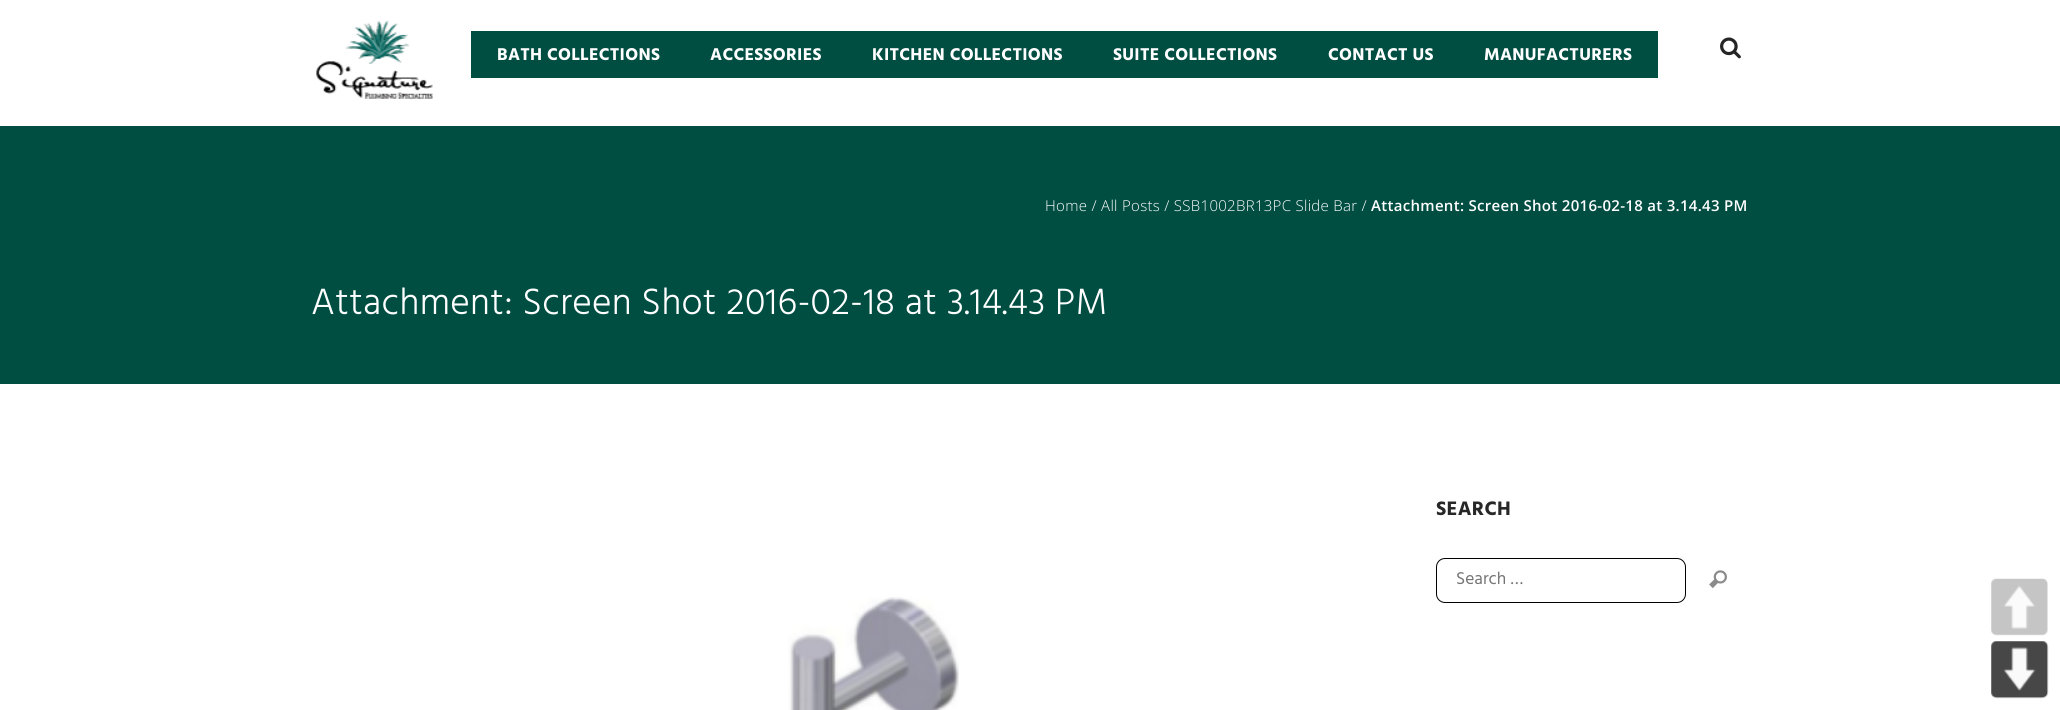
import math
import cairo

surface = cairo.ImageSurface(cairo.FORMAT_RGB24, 2060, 710)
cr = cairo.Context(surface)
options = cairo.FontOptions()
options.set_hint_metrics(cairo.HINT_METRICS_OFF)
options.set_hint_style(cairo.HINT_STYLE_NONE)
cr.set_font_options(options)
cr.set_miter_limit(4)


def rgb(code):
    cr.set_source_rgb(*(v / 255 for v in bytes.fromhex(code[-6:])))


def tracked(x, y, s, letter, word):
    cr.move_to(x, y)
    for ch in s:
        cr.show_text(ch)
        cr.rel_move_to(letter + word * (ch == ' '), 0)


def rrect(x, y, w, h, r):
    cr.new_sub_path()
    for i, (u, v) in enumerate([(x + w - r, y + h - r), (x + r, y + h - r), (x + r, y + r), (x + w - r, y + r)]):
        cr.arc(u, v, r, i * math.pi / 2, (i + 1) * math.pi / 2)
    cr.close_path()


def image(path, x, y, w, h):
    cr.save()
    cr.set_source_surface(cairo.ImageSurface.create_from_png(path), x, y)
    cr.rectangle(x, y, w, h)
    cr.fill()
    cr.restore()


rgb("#ffffff")
cr.paint()
image("img/1.png", 316, 20, 117, 79)
rgb("#004d42")
cr.rectangle(471, 31, 1187, 47)
cr.fill()
image("img/2.png", 1720, 37, 21, 22)
cr.rectangle(0, 126, 2060, 258)
cr.fill()
rrect(1436.5, 558.5, 249, 44, 8.5)
rgb("#000000")
cr.set_line_width(1)
cr.stroke()
image("img/3.png", 1709, 570, 18, 19)
image("img/4.png", 788, 597, 171, 113)
rgb("#fafafa")
rrect(1991, 579, 57, 56, 5)
cr.fill()
image("img/5.png", 1991, 578, 57, 58)
rgb("#efefef")
rrect(1991, 641, 57, 57, 5)
cr.fill()
image("img/6.png", 1991, 641, 58, 58)
cr.select_font_face("Hind", cairo.FONT_SLANT_NORMAL, cairo.FONT_WEIGHT_BOLD)
cr.set_font_size(17.5)
rgb("#ffffff")
for x, y, s in [
    (497, 60, "BATH COLLECTIONS"),
    (710, 60, "ACCESSORIES"),
    (872, 60, "KITCHEN COLLECTIONS"),
    (1113, 60, "SUITE COLLECTIONS"),
    (1328, 60, "CONTACT US"),
    (1484, 60, "MANUFACTURERS"),
]:
    tracked(x, y, s, 0.3, 0)
cr.select_font_face("Open Sans Light")
cr.set_font_size(15)
tracked(1045, 211, "Home / All Posts / SSB1002BR13PC Slide Bar /", 0.3, 0)
cr.select_font_face("Open Sans SemiBold")
tracked(1371, 211, "Attachment: Screen Shot 2016-02-18 at 3.14.43 PM", 0.3, 0)
cr.select_font_face("Hind Light")
cr.set_font_size(37.5)
tracked(311, 314, "Attachment: Screen Shot 2016-02-18 at 3.14.43 PM", 0.3, 0)
cr.select_font_face("Hind", cairo.FONT_SLANT_NORMAL, cairo.FONT_WEIGHT_BOLD)
cr.set_font_size(20)
rgb("#272727")
tracked(1436, 515, "SEARCH", 0.3, 0)
cr.select_font_face("Hind")
cr.set_font_size(17.5)
rgb("#757575")
cr.move_to(1456, 584)
cr.show_text("Search …")
surface.write_to_png("page.png")
